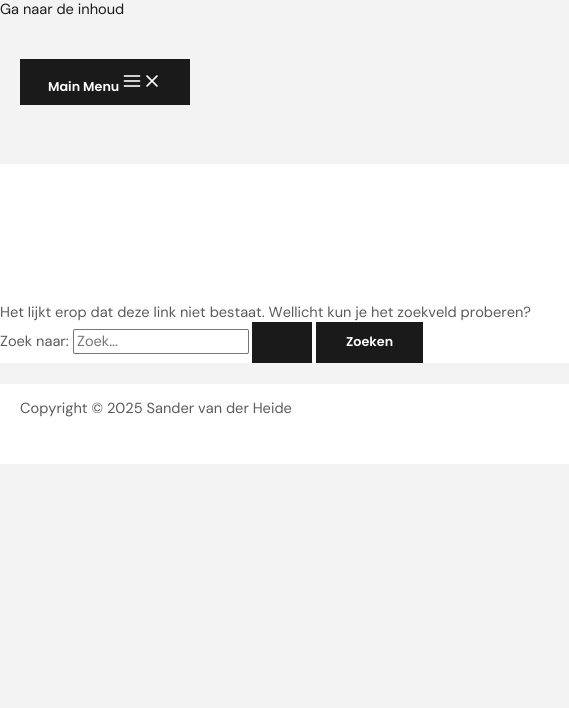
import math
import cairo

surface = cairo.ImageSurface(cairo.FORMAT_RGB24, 569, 708)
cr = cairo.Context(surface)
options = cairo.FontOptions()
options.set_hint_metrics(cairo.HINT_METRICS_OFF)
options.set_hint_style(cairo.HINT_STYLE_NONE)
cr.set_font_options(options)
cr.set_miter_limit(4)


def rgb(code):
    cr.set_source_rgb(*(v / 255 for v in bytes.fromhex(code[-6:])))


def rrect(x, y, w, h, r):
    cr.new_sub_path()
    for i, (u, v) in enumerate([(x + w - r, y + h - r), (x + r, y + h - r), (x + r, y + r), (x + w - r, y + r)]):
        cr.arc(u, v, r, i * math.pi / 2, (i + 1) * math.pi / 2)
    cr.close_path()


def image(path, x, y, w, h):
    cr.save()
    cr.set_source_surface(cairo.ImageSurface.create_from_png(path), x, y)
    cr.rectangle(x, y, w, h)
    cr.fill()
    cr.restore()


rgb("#f3f3f3")
cr.paint()
rgb("#1a1a1a")
cr.rectangle(20, 59, 170, 46)
cr.fill()
image("img/1.png", 123, 75, 18, 12)
image("img/2.png", 146, 75, 12, 12)
rgb("#ffffff")
cr.rectangle(0, 164, 569, 199)
cr.fill()
rrect(73.5, 329.5, 175, 24, 1.5)
rgb("#767676")
cr.set_line_width(1)
cr.stroke()
for x, y, w, h, color in [
    (252, 322, 60, 41, "#1a1a1a"),
    (316, 322, 107, 41, "#1a1a1a"),
    (0, 384, 569, 80, "#ffffff"),
]:
    rgb(color)
    cr.rectangle(x, y, w, h)
    cr.fill()
cr.select_font_face("DM Sans")
cr.set_font_size(14.6)
rgb("#1a1a1a")
cr.move_to(0, 14)
cr.show_text("Ga naar de inhoud")
cr.select_font_face("Poppins SemiBold")
cr.set_font_size(12.75)
rgb("#ffffff")
cr.move_to(48, 91)
cr.show_text("Main Menu")
cr.select_font_face("DM Sans")
cr.set_font_size(14.6)
rgb("#5a5a5a")
cr.move_to(0, 317)
cr.show_text("Het lijkt erop dat deze link niet bestaat. Wellicht kun je het zoekveld proberen?")
cr.move_to(0, 346)
cr.show_text("Zoek naar:")
rgb("#757575")
cr.move_to(77, 346)
cr.show_text("Zoek...")
cr.select_font_face("Poppins SemiBold")
cr.set_font_size(12.75)
rgb("#ffffff")
cr.move_to(346, 346)
cr.show_text("Zoeken")
cr.select_font_face("DM Sans")
cr.set_font_size(14.6)
rgb("#5a5a5a")
cr.move_to(20, 413)
cr.show_text("Copyright © 2025 Sander van der Heide")
surface.write_to_png("page.png")
